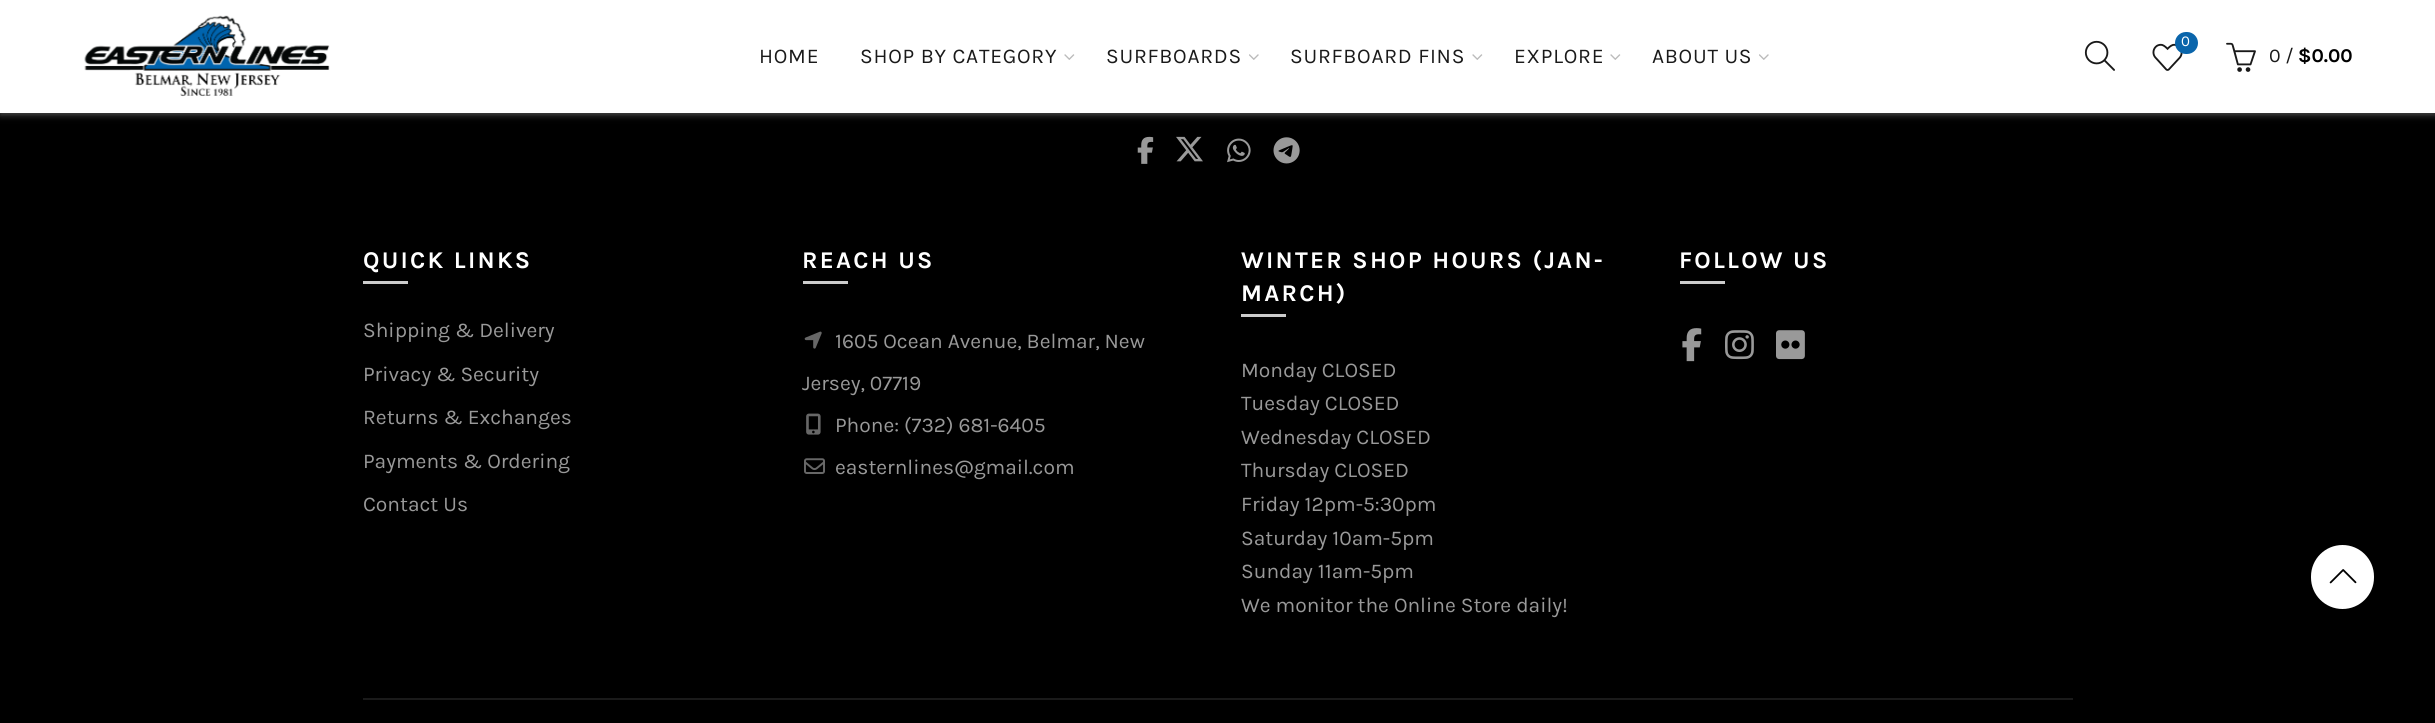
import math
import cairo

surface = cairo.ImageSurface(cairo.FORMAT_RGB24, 2435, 723)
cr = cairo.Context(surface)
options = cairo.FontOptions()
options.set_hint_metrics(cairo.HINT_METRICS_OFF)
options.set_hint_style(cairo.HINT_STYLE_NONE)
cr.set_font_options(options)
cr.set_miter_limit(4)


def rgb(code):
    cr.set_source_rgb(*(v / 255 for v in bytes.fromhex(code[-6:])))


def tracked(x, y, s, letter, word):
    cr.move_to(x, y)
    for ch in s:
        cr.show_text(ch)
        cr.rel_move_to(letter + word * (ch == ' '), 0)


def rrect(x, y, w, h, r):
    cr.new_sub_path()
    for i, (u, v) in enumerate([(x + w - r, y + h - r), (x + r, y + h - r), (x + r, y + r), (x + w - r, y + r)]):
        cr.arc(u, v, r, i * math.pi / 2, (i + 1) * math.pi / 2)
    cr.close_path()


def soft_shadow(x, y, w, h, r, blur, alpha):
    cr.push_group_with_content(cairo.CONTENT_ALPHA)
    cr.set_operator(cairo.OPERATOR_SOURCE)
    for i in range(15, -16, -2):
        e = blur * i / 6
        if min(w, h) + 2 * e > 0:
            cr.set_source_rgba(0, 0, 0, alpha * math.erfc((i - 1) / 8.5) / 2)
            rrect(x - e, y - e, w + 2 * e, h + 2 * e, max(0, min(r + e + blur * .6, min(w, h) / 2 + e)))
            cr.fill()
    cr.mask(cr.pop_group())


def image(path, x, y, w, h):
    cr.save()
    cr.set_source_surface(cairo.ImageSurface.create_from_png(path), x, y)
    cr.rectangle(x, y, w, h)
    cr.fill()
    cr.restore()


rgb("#000000")
cr.paint()
rgb("#bebebe")
soft_shadow(0, 2, 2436, 112, 0, 4, 0.5)
rgb("#ffffff")
cr.rectangle(0, 0, 2435, 113)
cr.fill()
image("img/1.png", 84, 15, 246, 82)
image("img/2.png", 1064, 54, 11, 6)
image("img/3.png", 1249, 54, 10, 6)
image("img/2.png", 1472, 54, 11, 6)
image("img/2.png", 1610, 54, 11, 6)
image("img/3.png", 1759, 54, 10, 6)
image("img/4.png", 2084, 40, 31, 31)
image("img/5.png", 2152, 43, 31, 28)
rgb("#0a65ab")
rrect(2175, 32, 23, 22, 11)
cr.fill()
image("img/6.png", 2226, 42, 30, 30)
image("img/7.png", 1137, 136, 17, 28)
image("img/8.png", 1176, 136, 27, 26)
image("img/9.png", 1227, 138, 24, 25)
image("img/10.png", 1273, 137, 27, 27)
rgb("#cccccc")
cr.rectangle(363, 281, 45, 3)
cr.fill()
cr.rectangle(803, 281, 45, 3)
cr.fill()
image("img/11.png", 804, 331, 18, 18)
image("img/12.png", 806, 413, 15, 22)
image("img/13.png", 804, 458, 21, 16)
cr.rectangle(1241, 314, 45, 3)
cr.fill()
cr.rectangle(1680, 281, 45, 3)
cr.fill()
image("img/14.png", 1682, 328, 20, 34)
image("img/15.png", 1725, 330, 29, 30)
image("img/16.png", 1776, 330, 29, 30)
rgb("#1a1a1a")
cr.rectangle(363, 698, 1710, 2)
cr.fill()
rgb("#ffffff")
rrect(2310, 544, 65, 66, 32.5)
cr.fill_preserve()
rgb("#000000")
cr.stroke()
image("img/17.png", 2329, 569, 28, 15)
cr.select_font_face("Karla")
cr.set_font_size(21)
rgb("#1a1a1a")
for x, y, s in [
    (759, 63, "HOME"),
    (860, 63, "SHOP BY CATEGORY"),
    (1106, 63, "SURFBOARDS"),
    (1290, 63, "SURFBOARD FINS"),
    (1514, 63, "EXPLORE"),
    (1652, 63, "ABOUT US"),
]:
    tracked(x, y, s, 0.75, 0)
cr.set_font_size(15)
rgb("#ffffff")
cr.move_to(2181, 46)
cr.show_text("0")
cr.set_font_size(19.5)
rgb("#1a1a1a")
cr.move_to(2269, 62)
cr.show_text("0 /")
cr.select_font_face("Karla", cairo.FONT_SLANT_NORMAL, cairo.FONT_WEIGHT_BOLD)
rgb("#000000")
cr.move_to(2298, 62)
cr.show_text("$0.00")
cr.set_font_size(24)
rgb("#ffffff")
tracked(363, 268, "QUICK LINKS", 2.25, 0)
cr.select_font_face("Karla")
cr.set_font_size(21)
rgb("#999999")
for x, y, s in [
    (363, 337, "Shipping & Delivery"),
    (363, 381, "Privacy & Security"),
    (363, 424, "Returns & Exchanges"),
    (363, 468, "Payments & Ordering"),
    (363, 511, "Contact Us"),
]:
    cr.move_to(x, y)
    cr.show_text(s)
cr.select_font_face("Karla", cairo.FONT_SLANT_NORMAL, cairo.FONT_WEIGHT_BOLD)
cr.set_font_size(24)
rgb("#ffffff")
tracked(802, 268, "REACH US", 2.25, 0)
cr.select_font_face("Karla")
cr.set_font_size(21)
rgb("#999999")
for x, y, s in [
    (835, 348, "1605 Ocean Avenue, Belmar, New"),
    (802, 390, "Jersey, 07719"),
    (835, 432, "Phone: (732) 681-6405"),
    (835, 474, "easternlines@gmail.com"),
]:
    cr.move_to(x, y)
    cr.show_text(s)
cr.select_font_face("Karla", cairo.FONT_SLANT_NORMAL, cairo.FONT_WEIGHT_BOLD)
cr.set_font_size(24)
rgb("#ffffff")
tracked(1241, 268, "WINTER SHOP HOURS (JAN-", 2.25, 0)
tracked(1241, 301, "MARCH)", 2.25, 0)
cr.select_font_face("Karla")
cr.set_font_size(21)
rgb("#999999")
for x, y, s in [
    (1241, 377, "Monday CLOSED"),
    (1241, 410, "Tuesday CLOSED"),
    (1241, 444, "Wednesday CLOSED"),
    (1241, 477, "Thursday CLOSED"),
    (1241, 511, "Friday 12pm-5:30pm"),
    (1241, 545, "Saturday 10am-5pm"),
    (1241, 578, "Sunday 11am-5pm"),
    (1241, 612, "We monitor the Online Store daily!"),
]:
    cr.move_to(x, y)
    cr.show_text(s)
cr.select_font_face("Karla", cairo.FONT_SLANT_NORMAL, cairo.FONT_WEIGHT_BOLD)
cr.set_font_size(24)
rgb("#ffffff")
tracked(1679, 268, "FOLLOW US", 2.25, 0)
surface.write_to_png("page.png")
